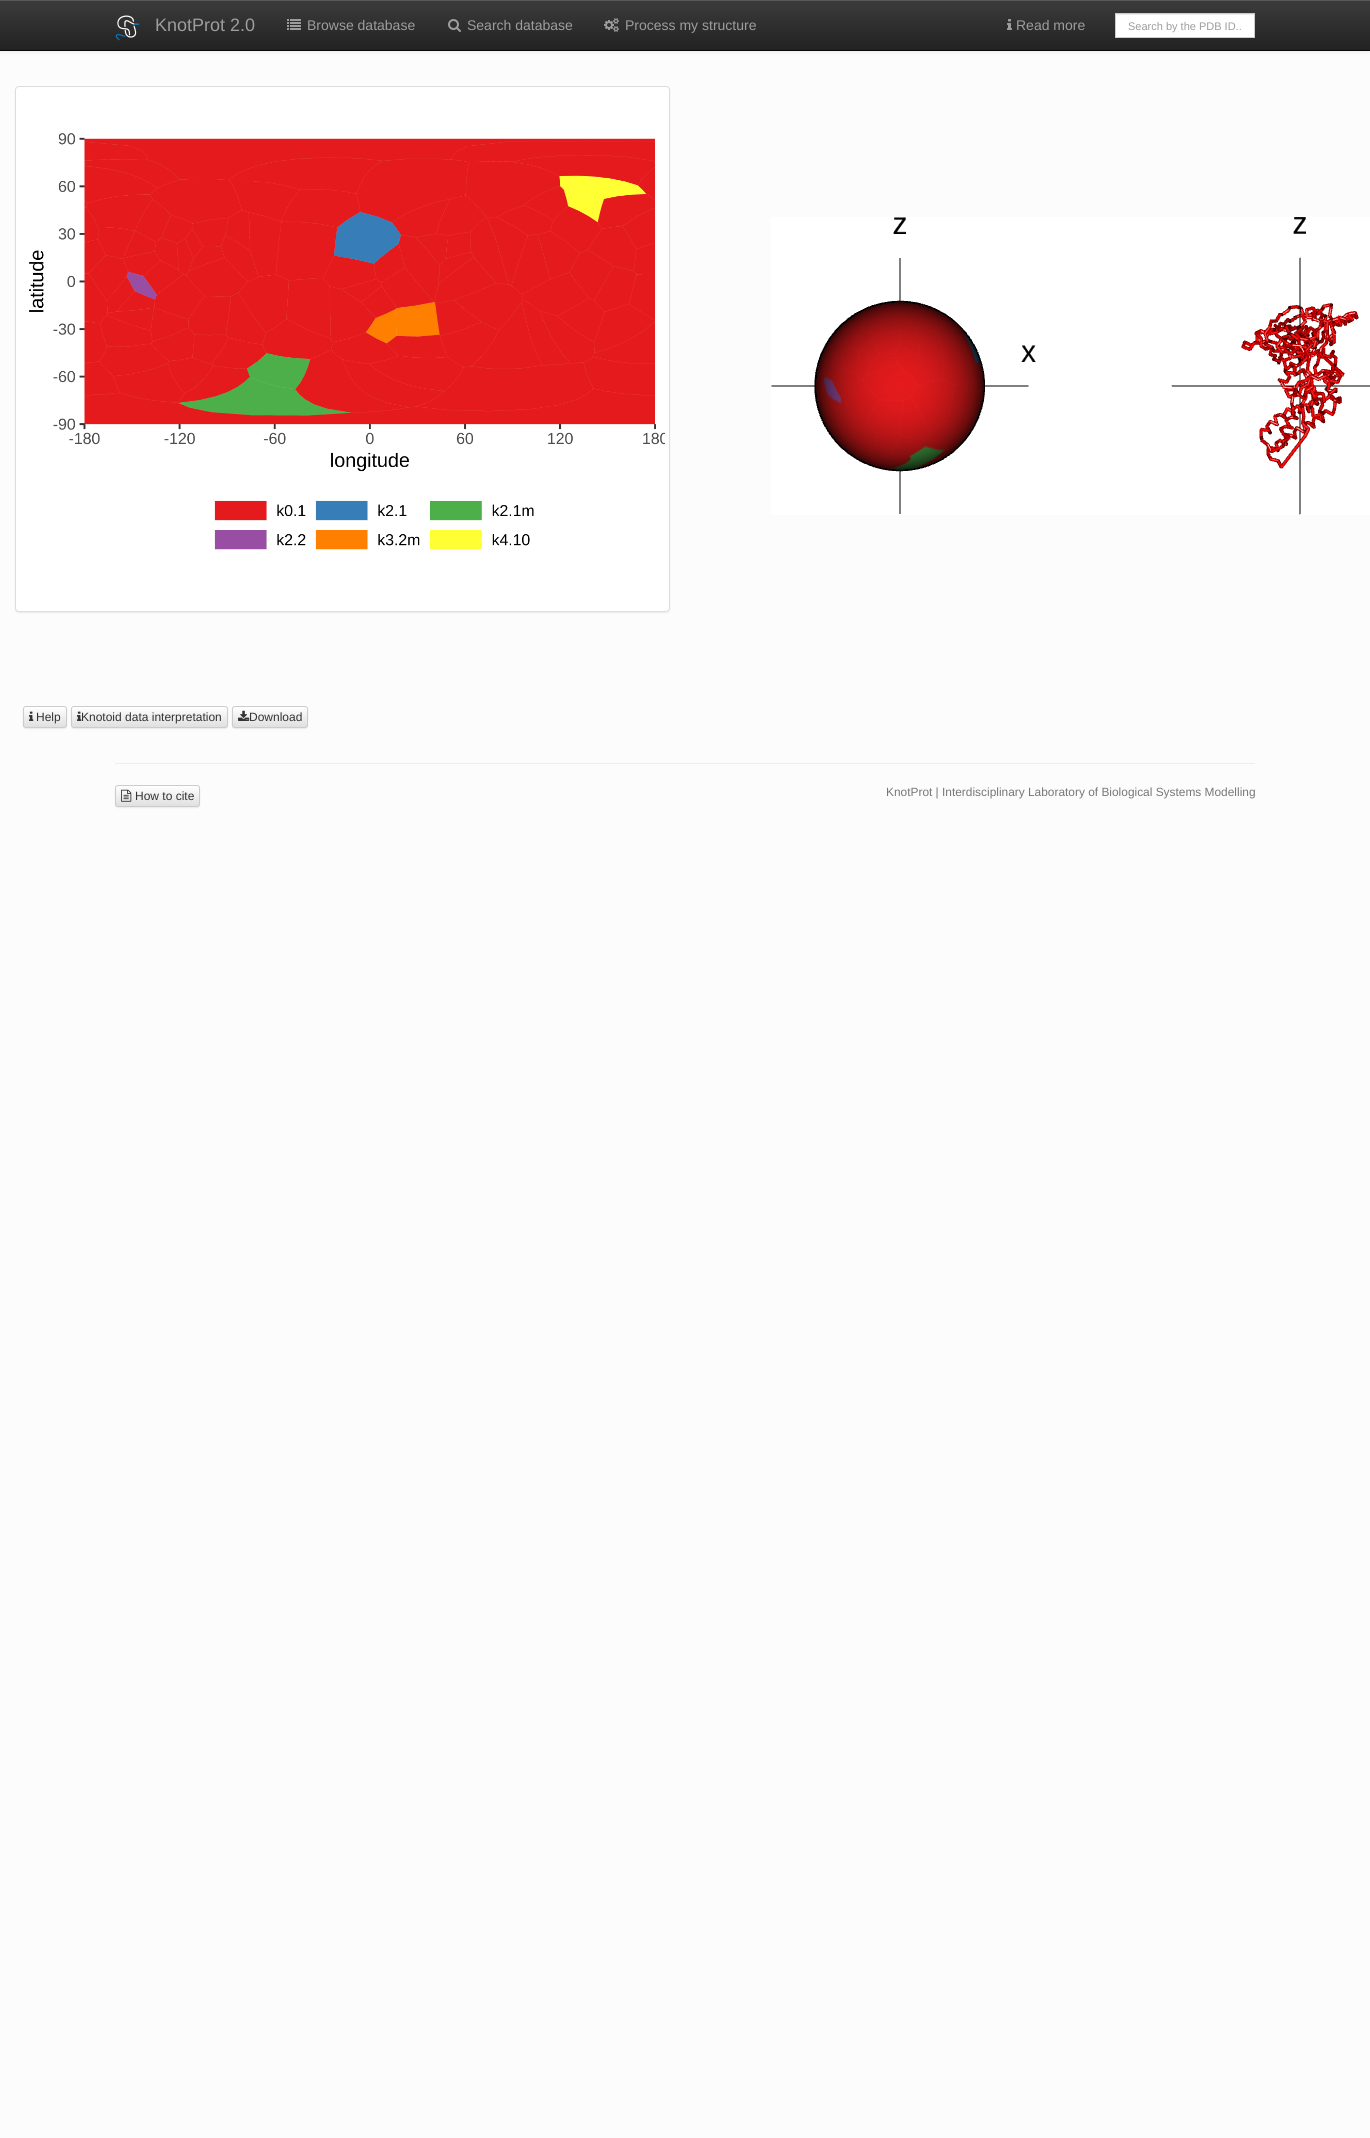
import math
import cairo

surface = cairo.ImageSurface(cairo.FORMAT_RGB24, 1370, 2138)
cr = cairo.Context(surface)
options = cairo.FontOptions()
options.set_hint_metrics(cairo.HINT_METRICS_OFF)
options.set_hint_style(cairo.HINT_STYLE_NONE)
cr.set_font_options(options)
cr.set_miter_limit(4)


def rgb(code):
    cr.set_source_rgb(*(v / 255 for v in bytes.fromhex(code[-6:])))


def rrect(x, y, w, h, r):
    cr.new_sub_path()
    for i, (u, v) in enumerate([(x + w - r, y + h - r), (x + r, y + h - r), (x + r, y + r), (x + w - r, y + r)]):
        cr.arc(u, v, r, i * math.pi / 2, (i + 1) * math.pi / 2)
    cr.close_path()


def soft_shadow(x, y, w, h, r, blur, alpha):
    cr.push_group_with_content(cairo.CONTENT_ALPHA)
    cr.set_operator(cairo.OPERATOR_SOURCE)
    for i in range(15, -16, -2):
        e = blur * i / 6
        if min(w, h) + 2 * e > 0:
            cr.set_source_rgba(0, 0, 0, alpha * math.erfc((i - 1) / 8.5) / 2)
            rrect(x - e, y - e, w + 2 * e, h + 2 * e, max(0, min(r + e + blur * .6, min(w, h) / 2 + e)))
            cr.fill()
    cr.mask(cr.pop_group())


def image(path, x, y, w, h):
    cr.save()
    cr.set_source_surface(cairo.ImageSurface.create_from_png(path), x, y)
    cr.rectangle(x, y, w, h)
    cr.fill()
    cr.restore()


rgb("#fcfcfc")
cr.paint()
rgb("#000000")
soft_shadow(0, 1, 1370, 51, 0, 2.5, 0.07)
gradient = cairo.LinearGradient(685, 0, 685, 50)
gradient.add_color_stop_rgba(0, 0.235, 0.235, 0.235, 1)
gradient.add_color_stop_rgba(1, 0.133, 0.133, 0.133, 1)
cr.set_source(gradient)
cr.rectangle(0, 1, 1370, 49)
cr.fill()
rgb("#595959")
cr.rectangle(0, 0, 1370, 1)
cr.fill()
rgb("#080808")
cr.rectangle(0, 50, 1370, 1)
cr.fill()
image("img/1.png", 115, 15, 25, 26)
image("img/2.png", 287, 19, 14, 11)
image("img/3.png", 448, 19, 13, 13)
image("img/4.png", 604, 18, 15, 14)
image("img/5.png", 1007, 19, 5, 11)
rgb("#ffffff")
cr.rectangle(1116, 15, 138, 22)
cr.fill()
rgb("#ececec")
cr.rectangle(1116, 14, 138, 1)
cr.fill()
cr.rectangle(1115.5, 13.5, 139, 24)
rgb("#cccccc")
cr.set_line_width(1)
cr.stroke()
rgb("#000000")
soft_shadow(15, 87, 655, 526, 4, 1, 0.07)
rgb("#ffffff")
rrect(15.5, 86.5, 654, 525, 3.5)
cr.fill_preserve()
rgb("#dddddd")
cr.stroke()
image("img/6.png", 29, 133, 636, 417)
image("img/7.png", 771, 217, 599, 298)
rgb("#000000")
soft_shadow(23, 707, 44, 22, 3, 0.5, 0.07)
cr.save()
rrect(23, 706, 44, 22, 3)
cr.clip()
gradient = cairo.LinearGradient(45, 707, 45, 727)
gradient.add_color_stop_rgba(0, 1, 1, 1, 1)
gradient.add_color_stop_rgba(1, 0.878, 0.878, 0.878, 1)
cr.set_source(gradient)
cr.rectangle(23, 707, 44, 20)
cr.fill()
cr.restore()
rrect(23.5, 706.5, 43, 21, 2.5)
rgb("#cccccc")
cr.stroke()
image("img/8.png", 29, 711, 5, 10)
rgb("#000000")
soft_shadow(71, 707, 157, 22, 3, 0.5, 0.07)
cr.save()
rrect(71, 706, 157, 22, 3)
cr.clip()
gradient = cairo.LinearGradient(150, 707, 150, 727)
gradient.add_color_stop_rgba(0, 1, 1, 1, 1)
gradient.add_color_stop_rgba(1, 0.878, 0.878, 0.878, 1)
cr.set_source(gradient)
cr.rectangle(71, 707, 157, 20)
cr.fill()
cr.restore()
rrect(71.5, 706.5, 156, 21, 2.5)
rgb("#cccccc")
cr.stroke()
image("img/8.png", 77, 711, 5, 10)
rgb("#000000")
soft_shadow(232, 707, 76, 22, 3, 0.5, 0.07)
cr.save()
rrect(232, 706, 76, 22, 3)
cr.clip()
gradient = cairo.LinearGradient(270, 707, 270, 727)
gradient.add_color_stop_rgba(0, 1, 1, 1, 1)
gradient.add_color_stop_rgba(1, 0.878, 0.878, 0.878, 1)
cr.set_source(gradient)
cr.rectangle(232, 707, 76, 20)
cr.fill()
cr.restore()
rrect(232.5, 706.5, 75, 21, 2.5)
rgb("#cccccc")
cr.stroke()
image("img/9.png", 238, 710, 12, 11)
rgb("#eeeeee")
cr.rectangle(115, 763, 1140, 1)
cr.fill()
rgb("#000000")
soft_shadow(115, 786, 85, 22, 3, 0.5, 0.07)
cr.save()
rrect(115, 785, 85, 22, 3)
cr.clip()
gradient = cairo.LinearGradient(158, 786, 158, 806)
gradient.add_color_stop_rgba(0, 1, 1, 1, 1)
gradient.add_color_stop_rgba(1, 0.878, 0.878, 0.878, 1)
cr.set_source(gradient)
cr.rectangle(115, 786, 85, 20)
cr.fill()
cr.restore()
rrect(115.5, 785.5, 84, 21, 2.5)
rgb("#cccccc")
cr.stroke()
image("img/10.png", 121, 789, 11, 13)
cr.select_font_face("Liberation Sans")
cr.set_font_size(18)
rgb("#9d9d9d")
cr.move_to(155, 31)
cr.show_text("KnotProt 2.0")
cr.set_font_size(14)
for x, y, s in [
    (307, 30, "Browse database"),
    (467, 30, "Search database"),
    (625, 30, "Process my structure"),
    (1016, 30, "Read more"),
]:
    cr.move_to(x, y)
    cr.show_text(s)
cr.set_font_size(11)
cr.move_to(1128, 30)
cr.show_text("Search by the PDB ID..")
cr.set_font_size(12)
rgb("#333333")
for x, y, s in [
    (36, 721, "Help"),
    (81, 721, "Knotoid data interpretation"),
    (249, 721, "Download"),
    (135, 800, "How to cite"),
]:
    cr.move_to(x, y)
    cr.show_text(s)
cr.set_font_size(11.9)
rgb("#777777")
cr.move_to(886, 796)
cr.show_text("KnotProt | Interdisciplinary Laboratory of Biological Systems Modelling")
surface.write_to_png("page.png")
